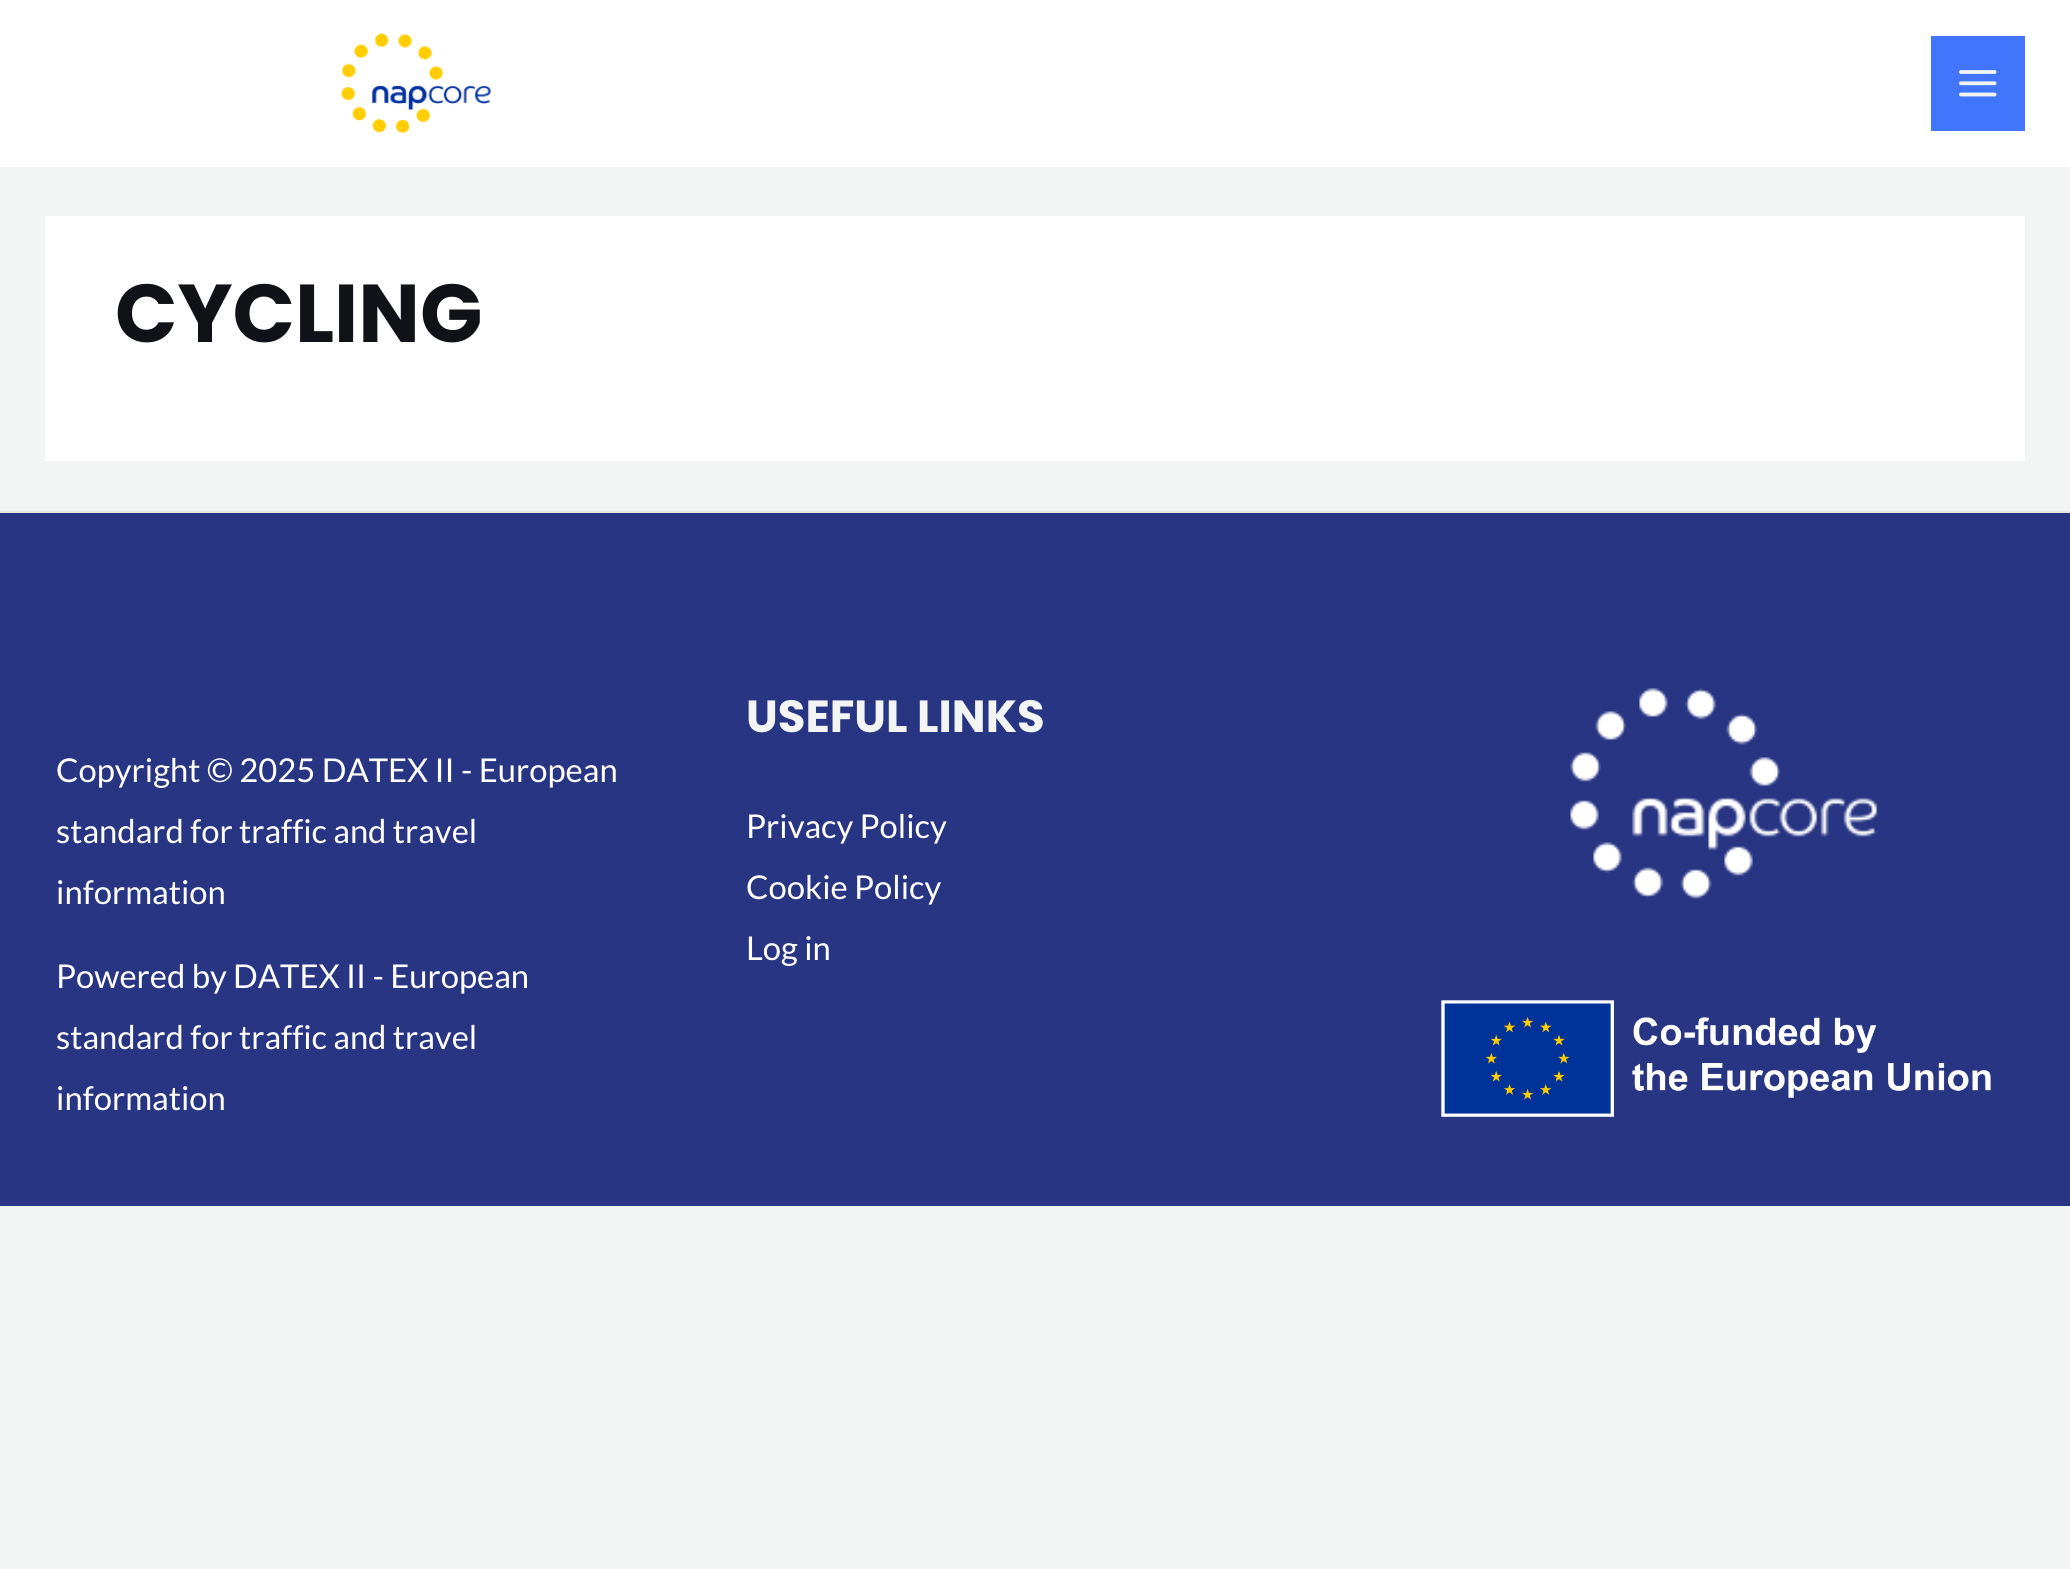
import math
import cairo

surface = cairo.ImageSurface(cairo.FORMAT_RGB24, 2070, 1569)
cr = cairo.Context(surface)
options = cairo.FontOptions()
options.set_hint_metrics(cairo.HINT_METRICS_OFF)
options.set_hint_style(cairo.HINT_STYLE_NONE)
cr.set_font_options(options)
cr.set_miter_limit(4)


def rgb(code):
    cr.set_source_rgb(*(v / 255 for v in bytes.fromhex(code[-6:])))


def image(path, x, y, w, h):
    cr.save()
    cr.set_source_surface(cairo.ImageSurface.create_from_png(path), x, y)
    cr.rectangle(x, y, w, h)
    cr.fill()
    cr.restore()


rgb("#f3f5f5")
cr.paint()
rgb("#ffffff")
cr.rectangle(0, 0, 2070, 167)
cr.fill()
image("img/1.png", 341, 33, 150, 100)
rgb("#4175fc")
cr.rectangle(1931, 36, 94, 95)
cr.fill()
image("img/2.png", 1959, 70, 38, 27)
for x, y, w, h, color in [
    (45, 216, 1980, 245, "#ffffff"),
    (0, 513, 2070, 693, "#283583"),
    (0, 511, 2070, 2, "#e6e6e6"),
]:
    rgb(color)
    cr.rectangle(x, y, w, h)
    cr.fill()
image("img/3.png", 1570, 688, 308, 211)
image("img/4.png", 1441, 1000, 550, 117)
cr.select_font_face("Poppins", cairo.FONT_SLANT_NORMAL, cairo.FONT_WEIGHT_BOLD)
cr.set_font_size(82)
rgb("#101218")
cr.move_to(115, 342)
cr.show_text("CYCLING")
cr.select_font_face("Lato")
cr.set_font_size(32.8)
rgb("#ffffff")
for x, y, s in [
    (56, 782, "Copyright © 2025 DATEX II - European"),
    (56, 843, "standard for traffic and travel"),
    (56, 904, "information"),
    (56, 988, "Powered by DATEX II - European"),
    (56, 1049, "standard for traffic and travel"),
    (56, 1110, "information"),
]:
    cr.move_to(x, y)
    cr.show_text(s)
cr.select_font_face("Poppins", cairo.FONT_SLANT_NORMAL, cairo.FONT_WEIGHT_BOLD)
cr.set_font_size(45)
rgb("#f3f5f5")
cr.move_to(746, 732)
cr.show_text("USEFUL LINKS")
cr.select_font_face("Lato")
cr.set_font_size(32.8)
rgb("#ffffff")
for x, y, s in [
    (746, 838, "Privacy Policy"),
    (746, 899, "Cookie Policy"),
    (746, 960, "Log in"),
]:
    cr.move_to(x, y)
    cr.show_text(s)
surface.write_to_png("page.png")
